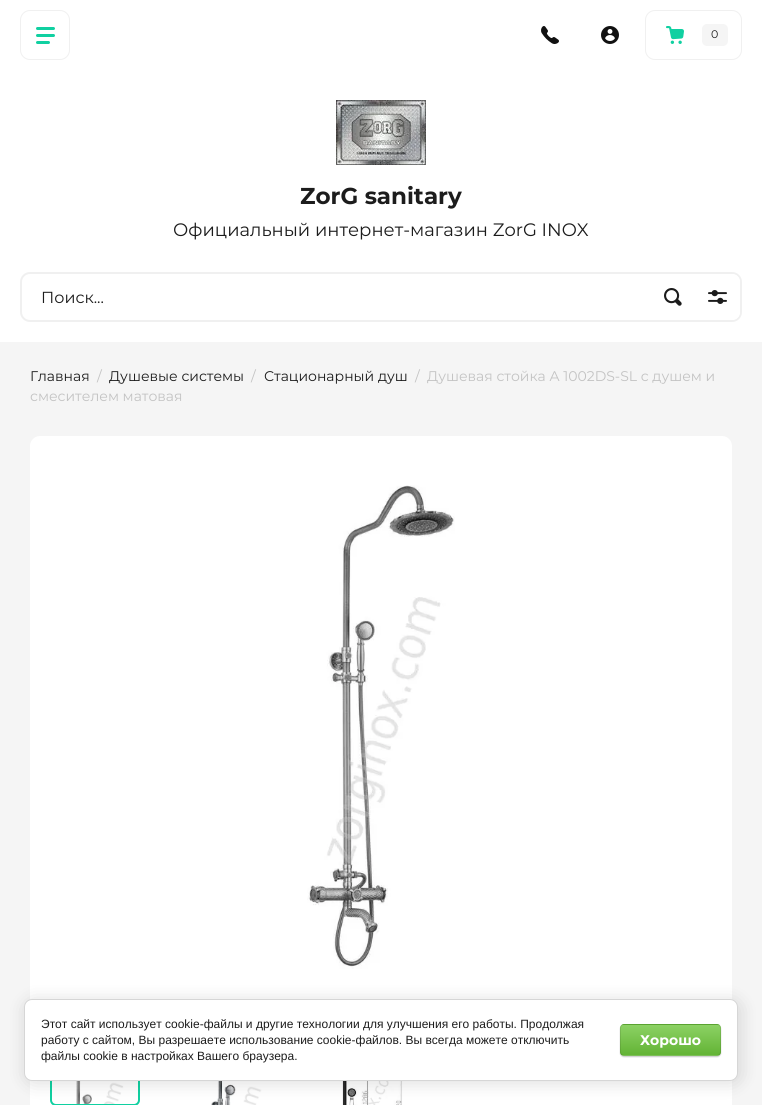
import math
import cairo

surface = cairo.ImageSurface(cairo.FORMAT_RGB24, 762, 1105)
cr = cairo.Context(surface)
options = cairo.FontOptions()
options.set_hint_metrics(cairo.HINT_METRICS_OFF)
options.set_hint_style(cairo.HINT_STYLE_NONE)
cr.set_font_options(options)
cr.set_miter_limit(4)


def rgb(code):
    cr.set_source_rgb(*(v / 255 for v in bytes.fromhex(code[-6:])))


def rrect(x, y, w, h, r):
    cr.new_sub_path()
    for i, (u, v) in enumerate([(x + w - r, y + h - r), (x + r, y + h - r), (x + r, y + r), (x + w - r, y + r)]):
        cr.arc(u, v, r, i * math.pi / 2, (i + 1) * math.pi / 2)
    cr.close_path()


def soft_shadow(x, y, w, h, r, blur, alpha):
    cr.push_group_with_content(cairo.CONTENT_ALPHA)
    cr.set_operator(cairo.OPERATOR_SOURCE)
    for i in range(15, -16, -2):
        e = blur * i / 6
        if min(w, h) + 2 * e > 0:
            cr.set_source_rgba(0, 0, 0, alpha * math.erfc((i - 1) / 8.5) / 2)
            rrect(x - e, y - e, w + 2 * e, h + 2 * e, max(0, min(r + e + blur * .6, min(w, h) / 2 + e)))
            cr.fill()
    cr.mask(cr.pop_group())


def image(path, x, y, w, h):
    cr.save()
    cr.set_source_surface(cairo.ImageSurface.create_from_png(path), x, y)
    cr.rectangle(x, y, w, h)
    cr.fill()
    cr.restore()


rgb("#f5f5f5")
cr.paint()
rgb("#ffffff")
cr.rectangle(0, 0, 762, 342)
cr.fill()
rrect(20.5, 10.5, 49, 49, 9.5)
rgb("#f0f0f0")
cr.set_line_width(1)
cr.stroke()
image("img/1.png", 36, 27, 19, 17)
image("img/2.png", 541, 26, 18, 18)
image("img/3.png", 601, 26, 18, 18)
rrect(645.5, 10.5, 96, 49, 9.5)
cr.stroke()
image("img/4.png", 666, 26, 18, 18)
rgb("#f5f5f5")
rrect(702, 24, 26, 22, 5)
cr.fill()
image("img/5.png", 336, 100, 90, 65)
rrect(21, 273, 720, 48, 9)
rgb("#f0f0f0")
cr.set_line_width(2)
cr.stroke()
image("img/6.png", 664, 288, 18, 18)
rgb("#ffffff")
cr.new_path()
cr.move_to(694, 274)
cr.line_to(732, 274)
cr.curve_to(736.5, 274, 740, 277.5, 740, 282)
cr.line_to(740, 312)
cr.curve_to(740, 316.5, 736.5, 320, 732, 320)
cr.line_to(694, 320)
cr.close_path()
cr.fill()
image("img/7.png", 708, 290, 19, 14)
rrect(30, 436, 702, 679, 10)
cr.fill()
image("img/8.png", 307, 485, 148, 484)
image("img/9.png", 76, 1081, 54, 23)
rrect(51, 1017, 88, 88, 5)
rgb("#10d0a1")
cr.stroke()
image("img/10.png", 211, 1081, 66, 24)
image("img/11.png", 339, 1081, 67, 24)
rgb("#000000")
soft_shadow(26, 1001, 714, 82, 8, 9, 0.14)
rgb("#ffffff")
rrect(24.5, 999.5, 713, 81, 7.5)
cr.fill_preserve()
rgb("#d6d6d6")
cr.set_line_width(1)
cr.stroke()
rgb("#000000")
soft_shadow(620, 1025, 101, 32, 4, 0.5, 0.2)
cr.save()
rrect(620, 1024, 101, 32, 4)
cr.clip()
gradient = cairo.LinearGradient(671, 995, 671, 1025)
gradient.add_color_stop_rgba(0, 0.549, 0.82, 0.392, 1)
gradient.add_color_stop_rgba(1, 0.388, 0.706, 0.208, 1)
cr.set_source(gradient)
cr.rectangle(620, 1024, 101, 1)
cr.fill()
gradient = cairo.LinearGradient(671, 1025, 671, 1055)
gradient.add_color_stop_rgba(0, 0.549, 0.82, 0.392, 1)
gradient.add_color_stop_rgba(1, 0.388, 0.706, 0.208, 1)
cr.set_source(gradient)
cr.rectangle(620, 1025, 101, 30)
cr.fill()
gradient = cairo.LinearGradient(671, 1055, 671, 1085)
gradient.add_color_stop_rgba(0, 0.549, 0.82, 0.392, 1)
gradient.add_color_stop_rgba(1, 0.388, 0.706, 0.208, 1)
cr.set_source(gradient)
cr.rectangle(620, 1055, 101, 1)
cr.fill()
cr.restore()
rrect(620.5, 1024.5, 100, 31, 3.5)
cr.set_source_rgba(0, 0, 0, 0.1)
cr.stroke()
cr.select_font_face("Montserrat")
cr.set_font_size(11)
rgb("#1c1c1c")
cr.move_to(711, 38)
cr.show_text("0")
cr.select_font_face("Montserrat", cairo.FONT_SLANT_NORMAL, cairo.FONT_WEIGHT_BOLD)
cr.set_font_size(23)
cr.move_to(300, 204)
cr.show_text("ZorG sanitary")
cr.select_font_face("Montserrat")
cr.set_font_size(18)
cr.move_to(173, 236)
cr.show_text("Официальный интернет-магазин ZorG INOX")
cr.set_font_size(16)
cr.move_to(41, 303)
cr.show_text("Поиск...")
cr.set_font_size(14)
cr.move_to(30, 381)
cr.show_text("Главная")
rgb("#c3c3c3")
cr.move_to(97, 381)
cr.show_text("/")
rgb("#1c1c1c")
cr.move_to(109, 381)
cr.show_text("Душевые системы")
rgb("#c3c3c3")
cr.move_to(251, 381)
cr.show_text("/")
rgb("#1c1c1c")
cr.move_to(264, 381)
cr.show_text("Стационарный душ")
rgb("#c3c3c3")
cr.move_to(415, 381)
cr.show_text("/  Душевая стойка A 1002DS-SL с душем и")
cr.move_to(30, 401)
cr.show_text("смесителем матовая")
cr.select_font_face("Liberation Sans")
cr.set_font_size(12)
rgb("#1c1c1c")
for x, y, s in [
    (41, 1028, "Этот сайт использует cookie-файлы и другие технологии для улучшения его работы. Продолжая"),
    (41, 1044, "работу с сайтом, Вы разрешаете использование cookie-файлов. Вы всегда можете отключить"),
    (41, 1060, "файлы cookie в настройках Вашего браузера."),
]:
    cr.move_to(x, y)
    cr.show_text(s)
cr.select_font_face("Montserrat", cairo.FONT_SLANT_NORMAL, cairo.FONT_WEIGHT_BOLD)
cr.set_font_size(14)
rgb("#ffffff")
cr.move_to(640, 1045)
cr.show_text("Хорошо")
surface.write_to_png("page.png")
